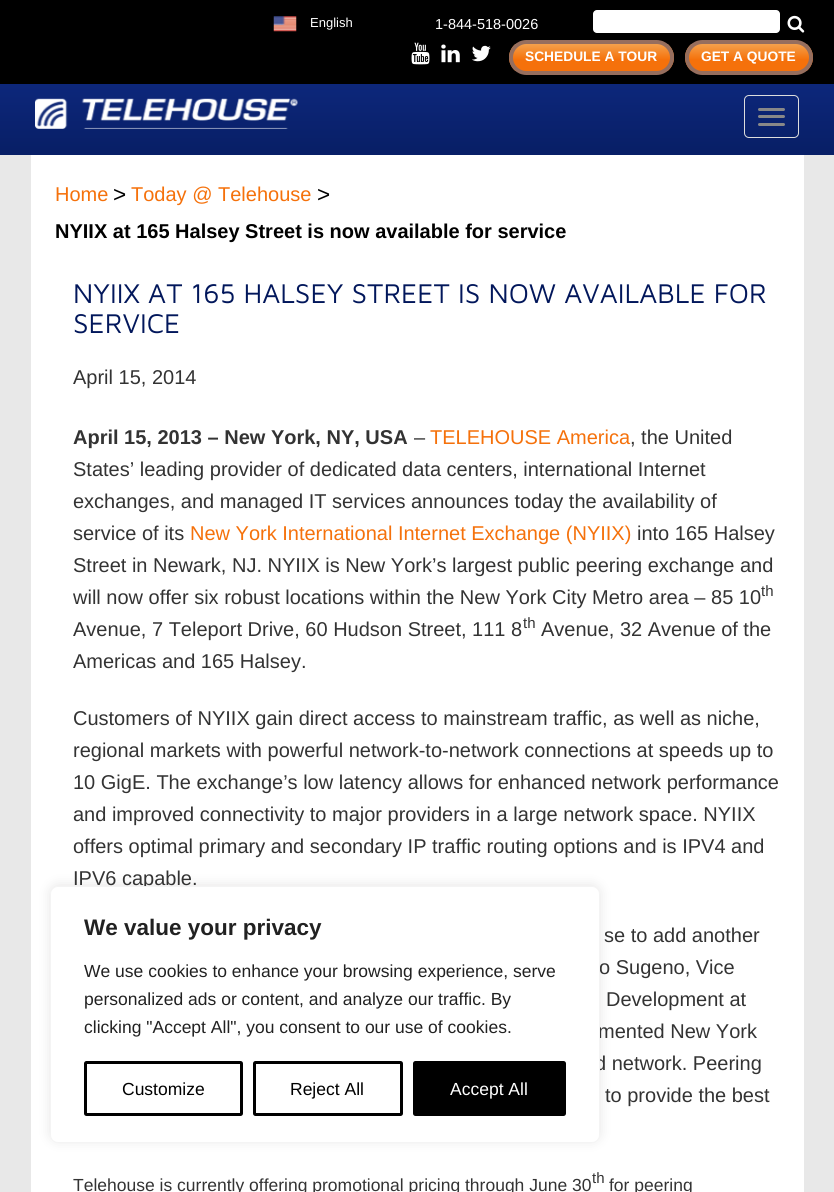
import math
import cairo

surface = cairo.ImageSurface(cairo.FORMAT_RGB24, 834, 1192)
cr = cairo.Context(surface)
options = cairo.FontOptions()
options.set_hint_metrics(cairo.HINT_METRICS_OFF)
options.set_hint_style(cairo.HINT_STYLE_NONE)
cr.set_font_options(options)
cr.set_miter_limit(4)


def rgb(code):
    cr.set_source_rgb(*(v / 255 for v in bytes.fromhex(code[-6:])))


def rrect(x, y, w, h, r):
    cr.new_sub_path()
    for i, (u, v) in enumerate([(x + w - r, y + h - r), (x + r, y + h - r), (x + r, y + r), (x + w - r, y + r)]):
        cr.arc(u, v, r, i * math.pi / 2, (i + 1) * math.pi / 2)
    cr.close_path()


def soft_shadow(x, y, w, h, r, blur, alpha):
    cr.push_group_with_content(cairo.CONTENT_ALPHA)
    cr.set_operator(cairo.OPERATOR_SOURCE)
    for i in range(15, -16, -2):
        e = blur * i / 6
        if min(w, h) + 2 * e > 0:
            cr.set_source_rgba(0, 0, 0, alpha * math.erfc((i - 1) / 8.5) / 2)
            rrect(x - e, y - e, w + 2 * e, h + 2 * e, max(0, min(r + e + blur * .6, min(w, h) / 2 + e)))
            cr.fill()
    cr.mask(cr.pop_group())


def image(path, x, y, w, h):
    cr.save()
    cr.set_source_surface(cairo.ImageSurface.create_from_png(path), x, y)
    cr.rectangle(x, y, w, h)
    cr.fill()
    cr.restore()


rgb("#e8e8e8")
cr.paint()
rgb("#000000")
cr.rectangle(0, 0, 834, 84)
cr.fill()
image("img/1.png", 273, 16, 24, 16)
rgb("#ffffff")
rrect(593, 10, 187, 23, 4)
cr.fill()
image("img/2.png", 787, 15, 18, 18)
image("img/3.png", 411, 42, 19, 23)
image("img/4.png", 441, 44, 19, 19)
image("img/5.png", 472, 45, 19, 17)
cr.save()
rrect(509, 40, 165, 35, 17.5)
cr.clip()
gradient = cairo.LinearGradient(591, 44, 591, 71)
gradient.add_color_stop_rgba(0.01, 0.957, 0.627, 0.294, 1)
gradient.add_color_stop_rgba(0.58, 0.961, 0.443, 0.043, 1)
gradient.add_color_stop_rgba(1, 0.961, 0.443, 0.043, 1)
cr.set_source(gradient)
cr.rectangle(509, 44, 165, 27)
cr.fill()
cr.restore()
rrect(511, 42, 161, 31, 15.5)
rgb("#966e5e")
cr.set_line_width(4)
cr.stroke()
cr.save()
rrect(685, 40, 128, 35, 17.5)
cr.clip()
gradient = cairo.LinearGradient(749, 44, 749, 71)
gradient.add_color_stop_rgba(0.01, 0.957, 0.627, 0.294, 1)
gradient.add_color_stop_rgba(0.58, 0.961, 0.443, 0.043, 1)
gradient.add_color_stop_rgba(1, 0.961, 0.443, 0.043, 1)
cr.set_source(gradient)
cr.rectangle(685, 44, 128, 27)
cr.fill()
cr.restore()
rrect(687, 42, 124, 31, 15.5)
cr.stroke()
gradient = cairo.LinearGradient(418, 84, 418, 155)
gradient.add_color_stop_rgba(0, 0.051, 0.153, 0.482, 1)
gradient.add_color_stop_rgba(0.92, 0.031, 0.122, 0.404, 1)
cr.set_source(gradient)
cr.rectangle(0, 84, 834, 71)
cr.fill()
image("img/6.png", 35, 98, 263, 31)
rrect(744.5, 95.5, 54, 42, 4.5)
rgb("#dddddd")
cr.set_line_width(1)
cr.stroke()
rgb("#888888")
rrect(758, 108, 27, 3, 1.5)
cr.fill()
rrect(758, 115, 27, 3, 1.5)
cr.fill()
rrect(758, 123, 27, 3, 1.5)
cr.fill()
rgb("#ffffff")
cr.rectangle(31, 155, 773, 1037)
cr.fill()
rgb("#acabab")
soft_shadow(50, 885, 550, 256, 8, 6, 0.3)
cr.select_font_face("Liberation Sans")
cr.set_font_size(13)
rgb("#ffffff")
cr.move_to(310, 27)
cr.show_text("English")
cr.set_font_size(14.5)
cr.move_to(435, 29)
cr.show_text("1-844-518-0026")
cr.select_font_face("Liberation Sans", cairo.FONT_SLANT_NORMAL, cairo.FONT_WEIGHT_BOLD)
cr.set_font_size(13.75)
cr.move_to(525, 61)
cr.show_text("SCHEDULE A TOUR")
cr.move_to(701, 61)
cr.show_text("GET A QUOTE")
cr.select_font_face("Liberation Sans")
cr.set_font_size(20)
rgb("#f5710b")
cr.move_to(55, 201)
cr.show_text("Home")
cr.set_font_size(22.5)
rgb("#000000")
cr.move_to(113, 202)
cr.show_text(">")
cr.set_font_size(20)
rgb("#f5710b")
cr.move_to(131, 201)
cr.show_text("Today @ Telehouse")
cr.set_font_size(22.5)
rgb("#000000")
cr.move_to(317, 202)
cr.show_text(">")
cr.select_font_face("Liberation Sans", cairo.FONT_SLANT_NORMAL, cairo.FONT_WEIGHT_BOLD)
cr.set_font_size(20)
cr.move_to(55, 238)
cr.show_text("NYIIX at 165 Halsey Street is now available for service")
cr.select_font_face("Maven Pro")
cr.set_font_size(28)
rgb("#02175b")
cr.move_to(73, 303)
cr.show_text("NYIIX AT 165 HALSEY STREET IS NOW AVAILABLE FOR")
cr.move_to(73, 333)
cr.show_text("SERVICE")
cr.select_font_face("Liberation Sans")
cr.set_font_size(20)
rgb("#333333")
cr.move_to(73, 384)
cr.show_text("April 15, 2014")
cr.select_font_face("Liberation Sans", cairo.FONT_SLANT_NORMAL, cairo.FONT_WEIGHT_BOLD)
cr.move_to(73, 444)
cr.show_text("April 15, 2013 – New York, NY, USA")
cr.select_font_face("Liberation Sans")
cr.move_to(414, 444)
cr.show_text("–")
rgb("#f5710b")
cr.move_to(430, 444)
cr.show_text("TELEHOUSE America")
rgb("#333333")
for x, y, s in [
    (630, 444, ", the United"),
    (73, 476, "States’ leading provider of dedicated data centers, international Internet"),
    (73, 508, "exchanges, and managed IT services announces today the availability of"),
    (73, 540, "service of its"),
]:
    cr.move_to(x, y)
    cr.show_text(s)
rgb("#f5710b")
cr.move_to(190, 540)
cr.show_text("New York International Internet Exchange (NYIIX)")
rgb("#333333")
for x, y, s in [
    (637, 540, "into 165 Halsey"),
    (73, 572, "Street in Newark, NJ. NYIIX is New York’s largest public peering exchange and"),
    (73, 604, "will now offer six robust locations within the New York City Metro area – 85 10"),
]:
    cr.move_to(x, y)
    cr.show_text(s)
cr.set_font_size(15)
cr.move_to(761, 596)
cr.show_text("th")
cr.set_font_size(20)
cr.move_to(73, 636)
cr.show_text("Avenue, 7 Teleport Drive, 60 Hudson Street, 111 8")
cr.set_font_size(15)
cr.move_to(523, 628)
cr.show_text("th")
cr.set_font_size(20)
for x, y, s in [
    (541, 636, "Avenue, 32 Avenue of the"),
    (73, 668, "Americas and 165 Halsey."),
    (73, 725, "Customers of NYIIX gain direct access to mainstream traffic, as well as niche,"),
    (73, 757, "regional markets with powerful network-to-network connections at speeds up to"),
    (73, 789, "10 GigE. The exchange’s low latency allows for enhanced network performance"),
    (73, 821, "and improved connectivity to major providers in a large network space. NYIIX"),
    (73, 853, "offers optimal primary and secondary IP traffic routing options and is IPV4 and"),
    (73, 885, "IPV6 capable."),
    (604, 942, "se to add another"),
    (599, 974, "o Sugeno, Vice"),
    (606, 1006, "Development at"),
    (598, 1038, "mented New York"),
    (595, 1070, "d network. Peering"),
    (605, 1102, "to provide the best"),
]:
    cr.move_to(x, y)
    cr.show_text(s)
cr.set_font_size(17.5)
cr.move_to(73, 1191)
cr.show_text("Telehouse is currently offering promotional pricing through June 30")
cr.set_font_size(15)
cr.move_to(592, 1183)
cr.show_text("th")
cr.set_font_size(17.5)
cr.move_to(609, 1191)
cr.show_text("for peering")
rgb("#ffffff")
rrect(50.5, 886.5, 549, 256, 7.5)
cr.fill_preserve()
rgb("#f4f4f4")
cr.stroke()
cr.select_font_face("Liberation Sans", cairo.FONT_SLANT_NORMAL, cairo.FONT_WEIGHT_BOLD)
cr.set_font_size(22.5)
rgb("#212121")
cr.move_to(84, 935)
cr.show_text("We value your privacy")
cr.select_font_face("Liberation Sans")
cr.set_font_size(17.5)
for x, y, s in [
    (84, 977, "We use cookies to enhance your browsing experience, serve"),
    (84, 1005, "personalized ads or content, and analyze our traffic. By"),
    (84, 1033, "clicking \"Accept All\", you consent to our use of cookies."),
]:
    cr.move_to(x, y)
    cr.show_text(s)
rrect(85.5, 1062.5, 156, 52, 1)
rgb("#000000")
cr.set_line_width(3)
cr.stroke()
cr.move_to(122, 1095)
cr.show_text("Customize")
rrect(254.5, 1062.5, 147, 52, 1)
cr.stroke()
cr.move_to(290, 1095)
cr.show_text("Reject All")
rrect(414.5, 1062.5, 150, 52, 1)
cr.fill_preserve()
cr.stroke()
rgb("#ffffff")
cr.move_to(450, 1095)
cr.show_text("Accept All")
surface.write_to_png("page.png")
